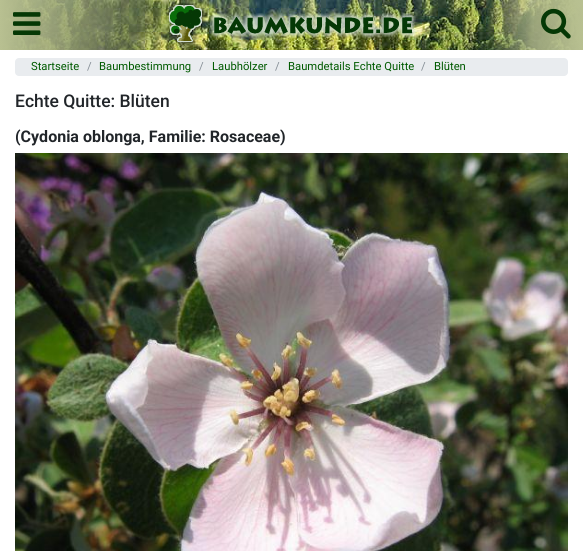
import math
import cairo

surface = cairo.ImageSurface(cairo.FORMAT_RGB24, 583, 551)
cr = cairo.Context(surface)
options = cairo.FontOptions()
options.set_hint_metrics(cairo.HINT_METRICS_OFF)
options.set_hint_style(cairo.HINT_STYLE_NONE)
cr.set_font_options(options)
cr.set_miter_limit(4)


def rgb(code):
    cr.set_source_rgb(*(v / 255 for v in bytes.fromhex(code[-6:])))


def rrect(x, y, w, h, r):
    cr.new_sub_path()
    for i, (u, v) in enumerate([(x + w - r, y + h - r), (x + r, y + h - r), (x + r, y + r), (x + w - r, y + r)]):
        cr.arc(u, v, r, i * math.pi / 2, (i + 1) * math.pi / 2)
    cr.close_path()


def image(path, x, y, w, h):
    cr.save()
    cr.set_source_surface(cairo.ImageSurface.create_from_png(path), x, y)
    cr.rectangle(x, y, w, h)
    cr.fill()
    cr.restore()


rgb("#ffffff")
cr.paint()
image("img/1.png", 0, 0, 583, 50)
image("img/2.png", 13, 12, 28, 23)
image("img/3.png", 167, 3, 250, 43)
image("img/4.png", 541, 8, 30, 31)
rgb("#e9ecef")
rrect(15, 58, 553, 18, 4)
cr.fill()
image("img/5.png", 15, 153, 553, 398)
cr.select_font_face("Roboto")
cr.set_font_size(11.25)
rgb("#005a00")
cr.move_to(31, 70)
cr.show_text("Startseite")
rgb("#868e96")
cr.move_to(87, 70)
cr.show_text("/")
rgb("#005a00")
cr.move_to(99, 70)
cr.show_text("Baumbestimmung")
rgb("#868e96")
cr.move_to(199, 70)
cr.show_text("/")
rgb("#005a00")
cr.move_to(212, 70)
cr.show_text("Laubhölzer")
rgb("#868e96")
cr.move_to(275, 70)
cr.show_text("/")
rgb("#005a00")
cr.move_to(288, 70)
cr.show_text("Baumdetails Echte Quitte")
rgb("#868e96")
cr.move_to(421, 70)
cr.show_text("/")
rgb("#005a00")
cr.move_to(434, 70)
cr.show_text("Blüten")
cr.select_font_face("Roboto Medium")
cr.set_font_size(17.5)
rgb("#212529")
cr.move_to(15, 107)
cr.show_text("Echte Quitte: Blüten")
cr.select_font_face("Roboto", cairo.FONT_SLANT_NORMAL, cairo.FONT_WEIGHT_BOLD)
cr.set_font_size(16)
cr.move_to(15, 142)
cr.show_text("(Cydonia oblonga, Familie: Rosaceae)")
surface.write_to_png("page.png")
